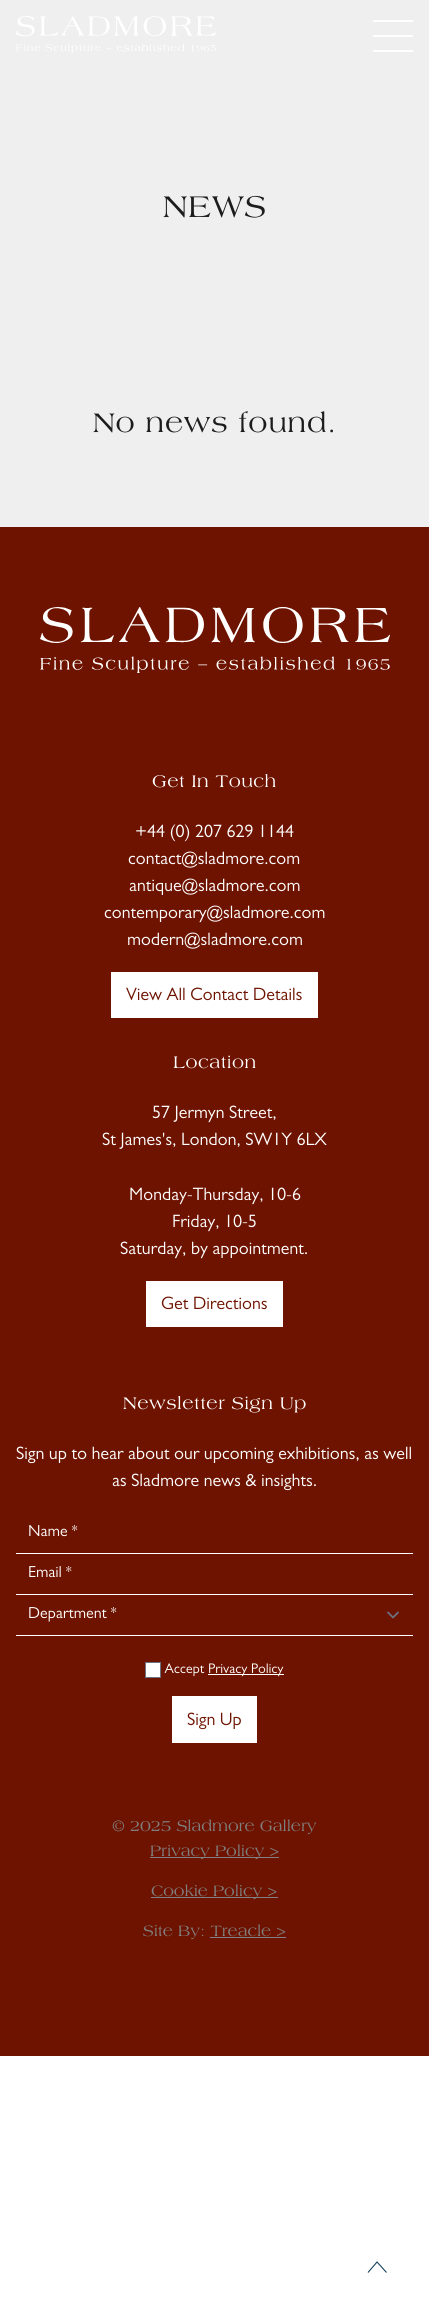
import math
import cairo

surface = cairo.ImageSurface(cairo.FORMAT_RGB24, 429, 2320)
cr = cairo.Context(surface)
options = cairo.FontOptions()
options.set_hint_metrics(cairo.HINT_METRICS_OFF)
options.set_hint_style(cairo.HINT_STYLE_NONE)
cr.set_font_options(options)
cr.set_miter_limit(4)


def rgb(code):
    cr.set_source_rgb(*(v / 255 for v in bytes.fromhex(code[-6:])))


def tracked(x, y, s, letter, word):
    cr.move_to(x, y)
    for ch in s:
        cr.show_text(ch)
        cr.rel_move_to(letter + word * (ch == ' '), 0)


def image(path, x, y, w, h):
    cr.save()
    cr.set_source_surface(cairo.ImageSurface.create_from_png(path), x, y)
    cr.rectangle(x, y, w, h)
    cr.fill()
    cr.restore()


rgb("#ffffff")
cr.paint()
rgb("#efefef")
cr.rectangle(0, 0, 429, 527)
cr.fill()
image("img/1.png", 16, 16, 200, 37)
for x, y, w, h, color in [
    (373, 20, 40, 2, "#ffffff"),
    (373, 35, 40, 2, "#ffffff"),
    (373, 50, 40, 2, "#ffffff"),
    (0, 527, 429, 1529, "#6e1300"),
]:
    rgb(color)
    cr.rectangle(x, y, w, h)
    cr.fill()
image("img/2.png", 40, 607, 350, 66)
image("img/3.png", 136, 824, 158, 18)
image("img/4.png", 128, 851, 172, 17)
image("img/5.png", 129, 878, 171, 17)
image("img/6.png", 104, 905, 221, 18)
image("img/7.png", 128, 932, 174, 17)
rgb("#ffffff")
cr.rectangle(111, 972, 207, 46)
cr.fill()
image("img/8.png", 126, 987, 176, 14)
image("img/9.png", 152, 1105, 124, 18)
image("img/10.png", 102, 1132, 225, 17)
image("img/11.png", 130, 1187, 171, 18)
image("img/12.png", 173, 1214, 83, 18)
image("img/13.png", 120, 1241, 187, 18)
cr.rectangle(146, 1281, 137, 46)
cr.fill()
image("img/14.png", 161, 1296, 106, 14)
image("img/15.png", 16, 1446, 395, 18)
image("img/16.png", 112, 1473, 204, 18)
cr.rectangle(16, 1553, 397, 1)
cr.fill()
image("img/17.png", 29, 1525, 49, 12)
cr.rectangle(16, 1594, 397, 1)
cr.fill()
image("img/18.png", 29, 1566, 43, 12)
cr.new_path()
cr.move_to(388, 1612.5)
cr.line_to(393, 1617.5)
cr.line_to(398, 1612.5)
rgb("#6b7280")
cr.set_line_width(1.8)
cr.set_line_cap(cairo.LINE_CAP_ROUND)
cr.set_line_join(cairo.LINE_JOIN_ROUND)
cr.stroke()
rgb("#ffffff")
cr.rectangle(16, 1635, 397, 1)
cr.fill()
image("img/19.png", 29, 1607, 88, 15)
cr.rectangle(145.5, 1662.5, 15, 15)
cr.fill_preserve()
rgb("#6b7280")
cr.set_line_width(1)
cr.set_line_cap(cairo.LINE_CAP_BUTT)
cr.set_line_join(cairo.LINE_JOIN_MITER)
cr.stroke()
image("img/20.png", 164, 1663, 41, 14)
rgb("#ffffff")
cr.rectangle(208, 1674, 76, 1)
cr.fill()
image("img/21.png", 209, 1663, 75, 14)
cr.rectangle(172, 1696, 85, 47)
cr.fill()
image("img/22.png", 187, 1712, 54, 18)
for x, y, w, h, color in [
    (150, 1857, 129, 1, "#808080"),
    (151, 1897, 127, 1, "#808080"),
    (210, 1937, 76, 1, "#808080"),
]:
    rgb(color)
    cr.rectangle(x, y, w, h)
    cr.fill()
cr.new_path()
cr.move_to(386.5, 2272.5)
cr.line_to(377, 2262)
cr.line_to(368, 2272.5)
rgb("#16415d")
cr.set_line_width(1.1)
cr.stroke()
cr.select_font_face("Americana")
cr.set_font_size(32)
rgb("#1c1c1c")
tracked(163, 217, "NEWS", 1, 0)
cr.set_font_size(28.75)
tracked(93, 432, "No news found.", 0.75, 0)
cr.set_font_size(18)
rgb("#ffffff")
for x, y, s in [
    (152, 787, "Get In Touch"),
    (173, 1068, "Location"),
    (123, 1409, "Newsletter Sign Up"),
]:
    tracked(x, y, s, 0.5, 0)
cr.set_font_size(16)
rgb("#808080")
for x, y, s in [
    (112, 1831, "© 2025 Sladmore Gallery"),
    (150, 1856, "Privacy Policy >"),
    (151, 1896, "Cookie Policy >"),
    (143, 1936, "Site By: Treacle >"),
]:
    cr.move_to(x, y)
    cr.show_text(s)
surface.write_to_png("page.png")
